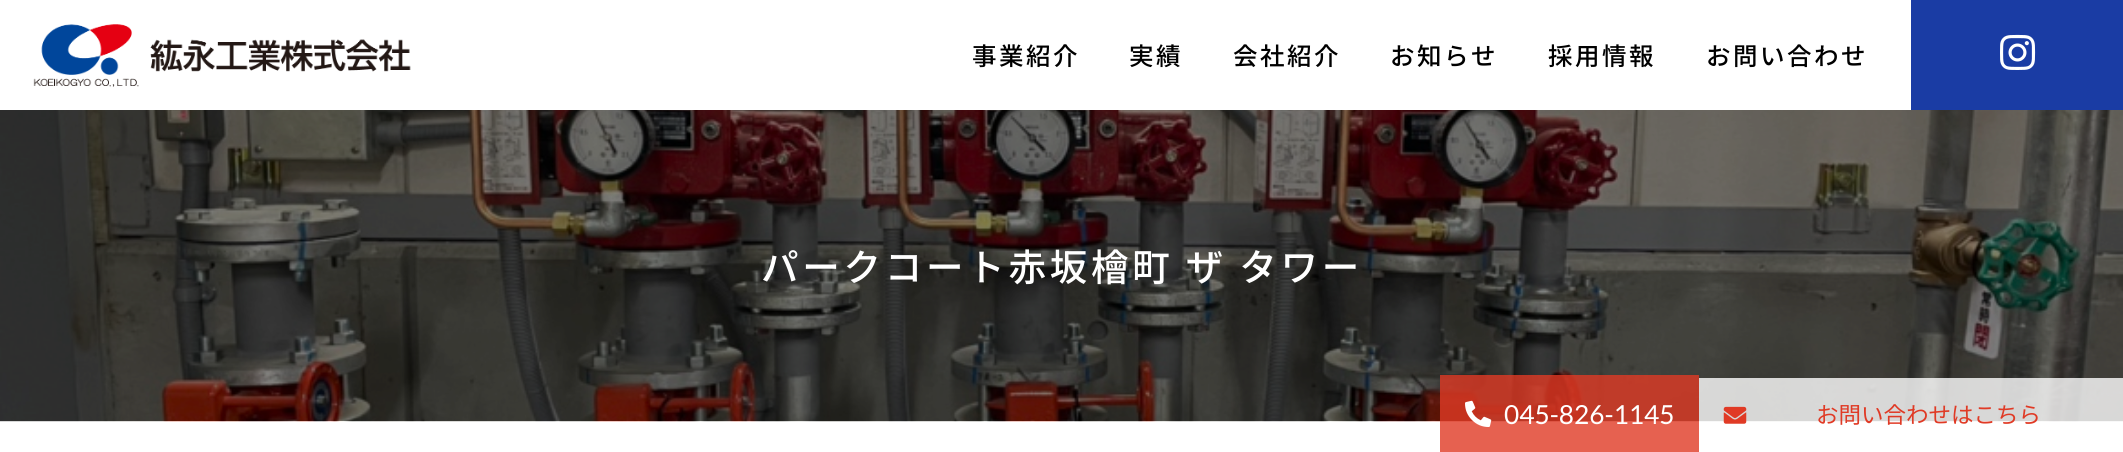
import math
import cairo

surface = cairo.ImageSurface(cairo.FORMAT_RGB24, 2123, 452)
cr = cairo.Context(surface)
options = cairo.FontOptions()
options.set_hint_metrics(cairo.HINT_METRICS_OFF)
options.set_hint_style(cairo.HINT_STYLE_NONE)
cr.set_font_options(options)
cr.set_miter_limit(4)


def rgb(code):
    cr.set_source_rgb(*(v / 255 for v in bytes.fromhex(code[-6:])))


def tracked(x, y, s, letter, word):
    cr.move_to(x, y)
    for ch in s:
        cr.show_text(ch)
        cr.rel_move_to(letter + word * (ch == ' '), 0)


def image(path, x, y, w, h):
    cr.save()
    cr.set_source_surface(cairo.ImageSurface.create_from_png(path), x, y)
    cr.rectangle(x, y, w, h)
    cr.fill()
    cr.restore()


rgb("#ffffff")
cr.paint()
image("img/1.png", 33, 24, 378, 63)
rgb("#1a3ca4")
cr.rectangle(1911, 0, 212, 110)
cr.fill()
image("img/2.png", 2000, 34, 36, 36)
image("img/3.png", 0, 110, 2123, 312)
cr.set_source_rgba(0.878, 0.227, 0.145, 0.8)
cr.rectangle(1440, 375, 259, 77)
cr.fill()
image("img/4.png", 1465, 400, 27, 27)
cr.set_source_rgba(1, 1, 1, 0.8)
cr.rectangle(1699, 378, 424, 44)
cr.fill()
image("img/5.png", 1723, 406, 24, 18)
cr.select_font_face("Noto Sans JP Medium")
cr.set_font_size(24.5)
rgb("#000000")
for x, y, s in [
    (972, 65, "事業紹介"),
    (1129, 65, "実績"),
    (1233, 65, "会社紹介"),
    (1390, 65, "お知らせ"),
    (1548, 65, "採用情報"),
    (1706, 65, "お問い合わせ"),
]:
    tracked(x, y, s, 2.5, 0)
cr.set_font_size(37.5)
rgb("#ffffff")
tracked(761, 281, "パークコート赤坂檜町 ザ タワー", 3.75, 0)
cr.select_font_face("Lato")
cr.set_font_size(26.25)
cr.move_to(1504, 424)
cr.show_text("045-826-1145")
cr.select_font_face("Noto Sans JP")
cr.set_font_size(22.5)
rgb("#e03a25")
cr.move_to(1816, 423)
cr.show_text("お問い合わせはこちら")
surface.write_to_png("page.png")
